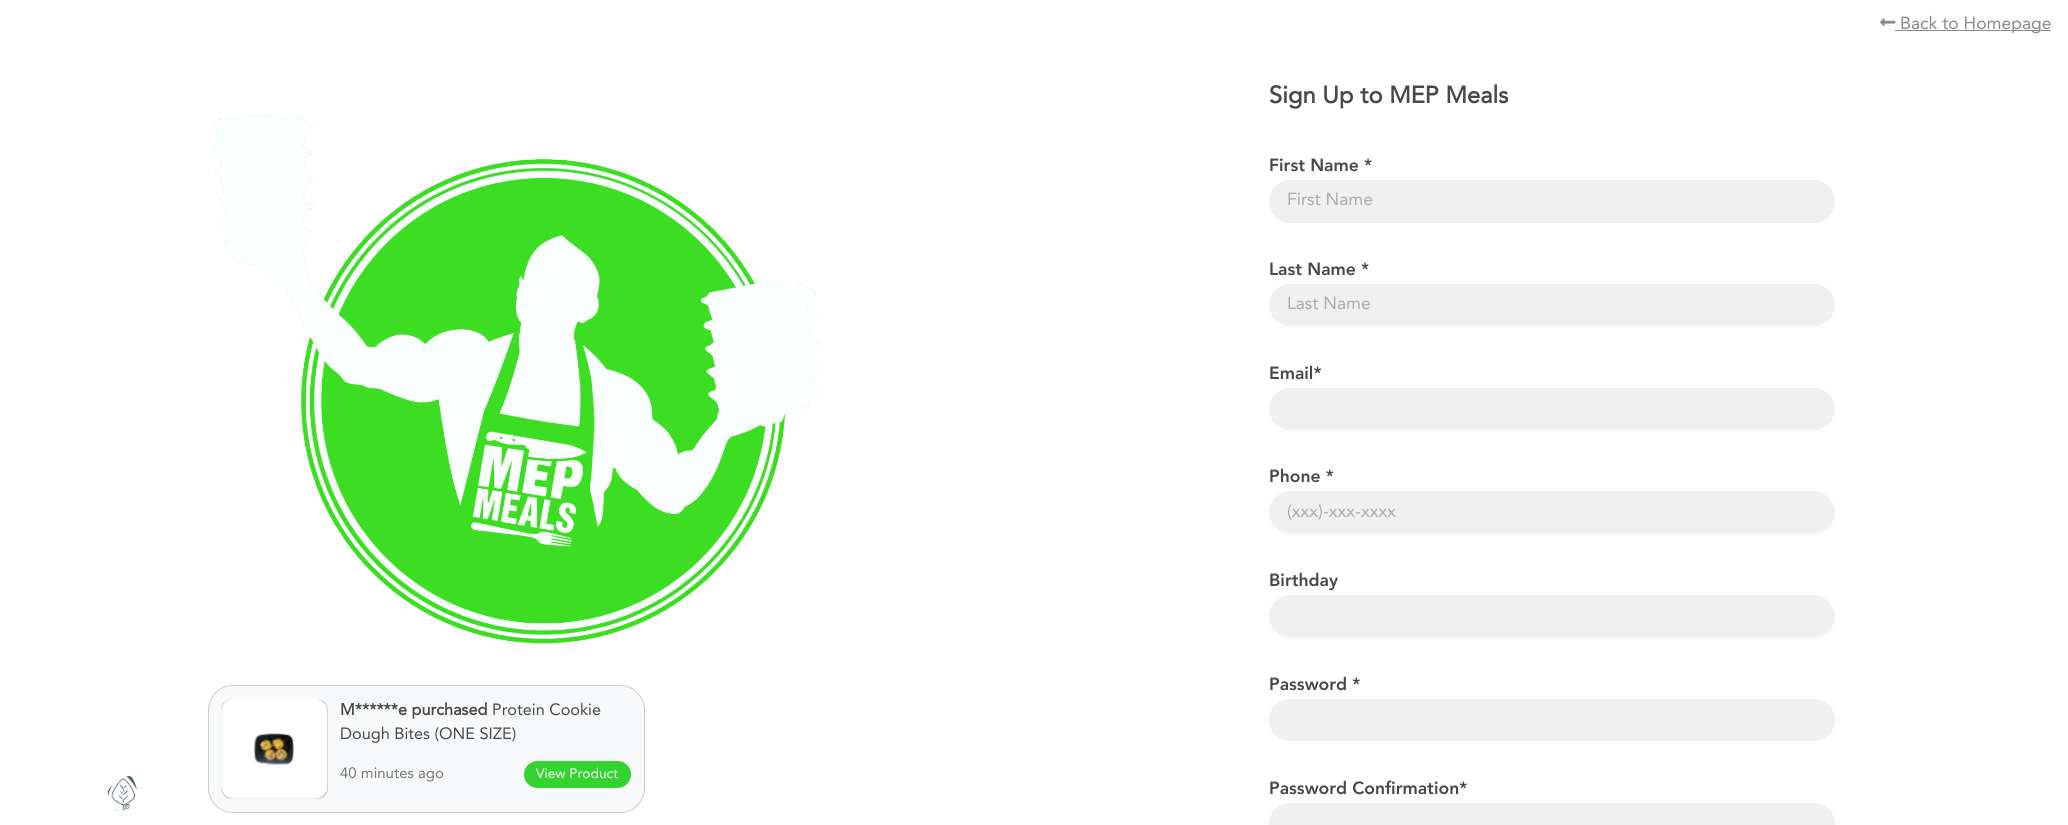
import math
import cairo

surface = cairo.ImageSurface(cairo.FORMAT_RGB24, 2068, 825)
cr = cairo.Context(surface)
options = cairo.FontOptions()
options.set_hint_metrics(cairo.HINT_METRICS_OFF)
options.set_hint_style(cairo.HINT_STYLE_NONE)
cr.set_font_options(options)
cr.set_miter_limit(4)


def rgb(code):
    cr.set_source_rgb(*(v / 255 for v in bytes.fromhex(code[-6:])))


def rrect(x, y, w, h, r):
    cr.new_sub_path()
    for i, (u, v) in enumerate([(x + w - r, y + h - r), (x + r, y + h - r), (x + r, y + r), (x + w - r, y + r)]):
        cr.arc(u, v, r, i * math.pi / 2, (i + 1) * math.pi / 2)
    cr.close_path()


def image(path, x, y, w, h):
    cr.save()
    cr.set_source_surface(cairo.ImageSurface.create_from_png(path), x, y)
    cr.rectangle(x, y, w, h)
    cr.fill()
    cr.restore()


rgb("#ffffff")
cr.paint()
rgb("#f8f9fa")
rrect(208.5, 685.5, 436, 127, 24.5)
cr.fill_preserve()
rgb("#cccccc")
cr.set_line_width(1)
cr.stroke()
rgb("#c0c0c0")
rrect(221, 699, 107, 100, 11)
cr.fill()
image("img/1.png", 221, 699, 107, 100)
rgb("#35d32f")
rrect(524, 761, 107, 27, 13.5)
cr.fill()
image("img/2.png", 212, 115, 609, 529)
image("img/3.png", 1880, 18, 16, 8)
rgb("#888888")
cr.rectangle(1895, 30, 156, 1)
cr.fill()
rgb("#f0f0f0")
rrect(1269, 180, 566, 43, 21.5)
cr.fill()
rrect(1269, 284, 566, 42, 21)
cr.fill()
rrect(1269, 388, 566, 42, 21)
cr.fill()
rrect(1269, 491, 566, 43, 21.5)
cr.fill()
rrect(1269, 595, 566, 43, 21.5)
cr.fill()
rrect(1269, 699, 566, 42, 21)
cr.fill()
rrect(1269, 803, 566, 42, 21)
cr.fill()
image("img/4.png", 107, 775, 31, 36)
cr.select_font_face("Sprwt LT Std", cairo.FONT_SLANT_NORMAL, cairo.FONT_WEIGHT_BOLD)
cr.set_font_size(16.25)
rgb("#484848")
cr.move_to(340, 715)
cr.show_text("M******e purchased")
cr.select_font_face("Sprwt LT Std")
cr.move_to(492, 715)
cr.show_text("Protein Cookie")
cr.move_to(340, 739)
cr.show_text("Dough Bites (ONE SIZE)")
cr.set_font_size(15)
rgb("#777777")
cr.move_to(340, 778)
cr.show_text("40 minutes ago")
cr.set_font_size(13.75)
rgb("#ffffff")
cr.move_to(536, 778)
cr.show_text("View Product")
cr.set_font_size(17.5)
rgb("#888888")
cr.move_to(1900, 29)
cr.show_text("Back to Homepage")
cr.select_font_face("Sprwt LT Std", cairo.FONT_SLANT_NORMAL, cairo.FONT_WEIGHT_BOLD)
cr.set_font_size(23.75)
rgb("#484848")
cr.move_to(1269, 103)
cr.show_text("Sign Up to MEP Meals")
cr.select_font_face("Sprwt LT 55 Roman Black")
cr.set_font_size(17.5)
cr.move_to(1269, 171)
cr.show_text("First Name *")
cr.select_font_face("Sprwt LT Std")
rgb("#aaaaaa")
cr.move_to(1287, 205)
cr.show_text("First Name")
cr.select_font_face("Sprwt LT 55 Roman Black")
rgb("#484848")
cr.move_to(1269, 275)
cr.show_text("Last Name *")
cr.select_font_face("Sprwt LT Std")
rgb("#aaaaaa")
cr.move_to(1287, 309)
cr.show_text("Last Name")
cr.select_font_face("Sprwt LT 55 Roman Black")
rgb("#484848")
cr.move_to(1269, 379)
cr.show_text("Email*")
cr.move_to(1269, 482)
cr.show_text("Phone *")
cr.select_font_face("Sprwt LT Std")
rgb("#aaaaaa")
cr.move_to(1287, 517)
cr.show_text("(xxx)-xxx-xxxx")
cr.select_font_face("Sprwt LT 55 Roman Black")
rgb("#484848")
for x, y, s in [
    (1269, 586, "Birthday"),
    (1269, 690, "Password *"),
    (1269, 794, "Password Confirmation*"),
]:
    cr.move_to(x, y)
    cr.show_text(s)
surface.write_to_png("page.png")
